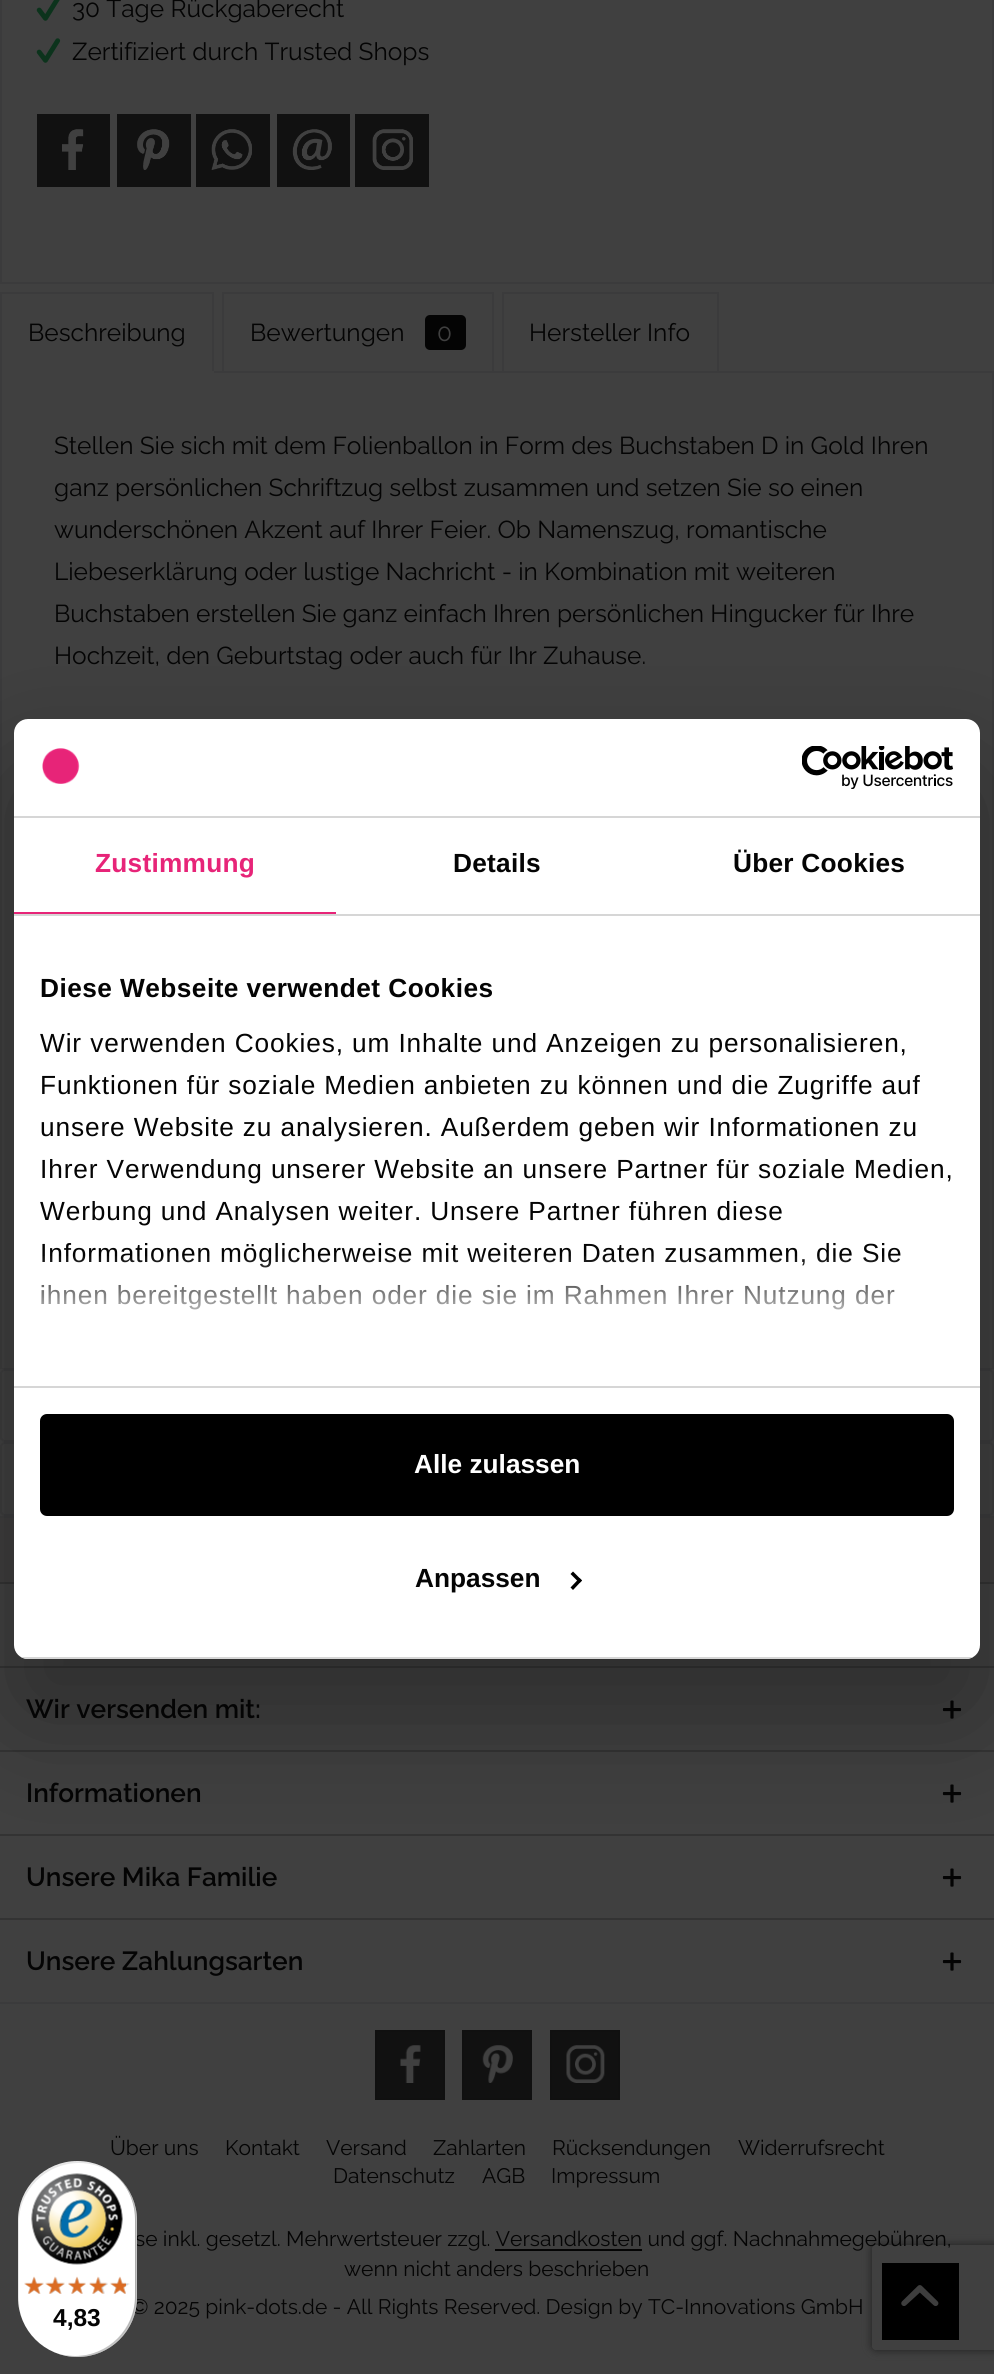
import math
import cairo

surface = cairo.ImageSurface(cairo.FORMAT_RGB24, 994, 2374)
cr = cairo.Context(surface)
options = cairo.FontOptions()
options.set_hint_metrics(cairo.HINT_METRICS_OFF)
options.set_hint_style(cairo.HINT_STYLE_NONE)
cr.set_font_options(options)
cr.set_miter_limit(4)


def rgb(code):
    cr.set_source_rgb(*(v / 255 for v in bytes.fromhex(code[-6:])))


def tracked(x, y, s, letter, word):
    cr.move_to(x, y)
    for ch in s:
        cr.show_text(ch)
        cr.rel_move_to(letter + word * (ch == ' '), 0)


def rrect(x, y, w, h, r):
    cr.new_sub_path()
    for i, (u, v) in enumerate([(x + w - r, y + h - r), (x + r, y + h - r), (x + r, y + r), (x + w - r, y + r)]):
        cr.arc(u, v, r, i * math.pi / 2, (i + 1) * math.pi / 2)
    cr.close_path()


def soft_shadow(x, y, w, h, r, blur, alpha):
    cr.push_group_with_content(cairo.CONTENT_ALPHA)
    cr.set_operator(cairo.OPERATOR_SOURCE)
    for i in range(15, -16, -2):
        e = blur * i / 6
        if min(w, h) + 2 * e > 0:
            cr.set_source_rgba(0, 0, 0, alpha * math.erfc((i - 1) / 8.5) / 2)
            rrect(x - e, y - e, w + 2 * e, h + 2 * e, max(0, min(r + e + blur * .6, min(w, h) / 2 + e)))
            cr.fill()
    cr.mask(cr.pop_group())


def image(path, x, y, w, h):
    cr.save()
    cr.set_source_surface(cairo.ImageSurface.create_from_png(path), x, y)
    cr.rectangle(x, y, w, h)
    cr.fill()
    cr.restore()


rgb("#404040")
cr.paint()
for x, y, w, h, color in [
    (992, 0, 2, 284, "#3b3b3c"),
    (0, 282, 994, 2, "#3b3b3c"),
    (0, 0, 2, 284, "#3b3b3c"),
]:
    rgb(color)
    cr.rectangle(x, y, w, h)
    cr.fill()
image("img/1.png", 36, 0, 24, 21)
image("img/2.png", 36, 38, 25, 25)
rgb("#111111")
cr.rectangle(37, 114, 73, 73)
cr.fill()
image("img/3.png", 62, 129, 22, 41)
cr.rectangle(117, 114, 74, 73)
cr.fill()
image("img/4.png", 137, 129, 33, 41)
cr.rectangle(196, 114, 74, 73)
cr.fill()
image("img/5.png", 211, 129, 41, 41)
cr.rectangle(277, 114, 73, 73)
cr.fill()
image("img/6.png", 292, 129, 40, 41)
cr.rectangle(355, 114, 74, 73)
cr.fill()
image("img/7.png", 372, 129, 41, 41)
rgb("#3b3b3c")
cr.rectangle(0, 292, 214, 2)
cr.fill()
cr.rectangle(1, 372, 992, 997)
cr.stroke()
for x, y, w, h, color in [
    (212, 292, 2, 81, "#3b3b3c"),
    (0, 371, 214, 2, "#404040"),
    (0, 292, 2, 81, "#3b3b3c"),
]:
    rgb(color)
    cr.rectangle(x, y, w, h)
    cr.fill()
cr.rectangle(223, 293, 270, 79)
cr.stroke()
rgb("#040404")
rrect(425, 315, 41, 35, 5)
cr.fill()
cr.rectangle(503, 293, 215, 79)
rgb("#3b3b3c")
cr.stroke()
rgb("#404040")
cr.rectangle(0, 1369, 994, 1)
cr.fill()
rrect(1, 1370, 992, 71, 4)
rgb("#3b3b3c")
cr.stroke()
rrect(1, 1443, 992, 72, 4)
cr.stroke()
for x, y, w, h, color in [
    (0, 1518, 994, 64, "#3e3d3d"),
    (0, 1516, 994, 2, "#3b3b3c"),
    (0, 1582, 994, 2, "#333333"),
    (0, 1666, 994, 2, "#333333"),
]:
    rgb(color)
    cr.rectangle(x, y, w, h)
    cr.fill()
image("img/8.png", 942, 1700, 20, 19)
cr.rectangle(0, 1750, 994, 2)
cr.fill()
image("img/8.png", 942, 1784, 20, 19)
cr.rectangle(0, 1834, 994, 2)
cr.fill()
image("img/8.png", 942, 1868, 20, 19)
cr.rectangle(0, 1918, 994, 2)
cr.fill()
image("img/8.png", 942, 1952, 20, 19)
rgb("#3b3b3c")
cr.rectangle(0, 2002, 994, 2)
cr.fill()
rgb("#111111")
cr.rectangle(377, 2032, 66, 66)
cr.fill()
image("img/9.png", 400, 2045, 21, 38)
cr.rectangle(376, 2031, 68, 68)
rgb("#101010")
cr.stroke()
rgb("#111111")
cr.rectangle(464, 2032, 66, 66)
cr.fill()
image("img/10.png", 482, 2045, 31, 38)
cr.rectangle(463, 2031, 68, 68)
rgb("#101010")
cr.stroke()
rgb("#111111")
cr.rectangle(552, 2032, 66, 66)
cr.fill()
image("img/11.png", 566, 2045, 39, 38)
cr.rectangle(551, 2031, 68, 68)
rgb("#101010")
cr.stroke()
rgb("#040404")
cr.rectangle(495, 2249, 147, 2)
cr.fill()
cr.save()
cr.set_fill_rule(cairo.FILL_RULE_EVEN_ODD)
cr.new_path()
cr.move_to(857, 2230)
cr.line_to(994, 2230)
cr.line_to(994, 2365)
cr.line_to(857, 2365)
cr.close_path()
cr.move_to(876, 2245)
cr.line_to(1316, 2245)
cr.curve_to(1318, 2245, 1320, 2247, 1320, 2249)
cr.line_to(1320, 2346)
cr.curve_to(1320, 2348, 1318, 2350, 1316, 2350)
cr.line_to(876, 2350)
cr.curve_to(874, 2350, 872, 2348, 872, 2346)
cr.line_to(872, 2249)
cr.curve_to(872, 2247, 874, 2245, 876, 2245)
cr.close_path()
cr.clip()
rgb("#202020")
soft_shadow(872, 2245, 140, 105, 4, 4.5, 1)
cr.restore()
rgb("#000000")
cr.rectangle(882, 2263, 77, 77)
cr.fill()
image("img/12.png", 901, 2285, 38, 21)
rgb("#000000")
soft_shadow(14, 775, 966, 940, 14, 59.5, 0.3)
rgb("#ffffff")
rrect(14, 719, 966, 940, 14)
cr.fill()
rgb("#d6d6d6")
cr.rectangle(14, 816, 966, 2)
cr.fill()
image("img/13.png", 42, 748, 38, 36)
image("img/14.png", 802, 746, 152, 43)
for x, y, w, h, color in [
    (14, 914, 966, 2, "#d6d6d6"),
    (14, 912, 322, 2, "#e72478"),
    (14, 1386, 966, 2, "#d6d6d6"),
]:
    rgb(color)
    cr.rectangle(x, y, w, h)
    cr.fill()
cr.save()
rrect(14, 719, 966, 940, 14)
cr.clip()
cr.rectangle(14, 1657, 966, 2)
cr.fill()
cr.restore()
rgb("#000000")
rrect(42, 1416, 910, 98, 5)
cr.fill_preserve()
cr.set_line_width(4)
cr.stroke()
cr.new_path()
cr.move_to(573, 1571.5)
cr.line_to(582, 1580.5)
cr.line_to(579.5, 1583)
cr.line_to(570.5, 1574)
cr.close_path()
cr.fill()
cr.new_path()
cr.move_to(579.5, 1578)
cr.line_to(582, 1580.5)
cr.line_to(573, 1590)
cr.line_to(570.5, 1587.5)
cr.close_path()
cr.fill()
cr.select_font_face("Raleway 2 Thin")
cr.set_font_size(24.5)
rgb("#040404")
for x, y, s in [
    (72, 17, "30 Tage Rückgaberecht"),
    (72, 60, "Zertifiziert durch Trusted Shops"),
    (28, 341, "Beschreibung"),
    (250, 341, "Bewertungen"),
]:
    cr.move_to(x, y)
    cr.show_text(s)
rgb("#404040")
cr.move_to(437, 341)
cr.show_text("0")
rgb("#040404")
for x, y, s in [
    (529, 341, "Hersteller Info"),
    (54, 454, "Stellen Sie sich mit dem Folienballon in Form des Buchstaben D in Gold Ihren"),
    (54, 496, "ganz persönlichen Schriftzug selbst zusammen und setzen Sie so einen"),
    (54, 538, "wunderschönen Akzent auf Ihrer Feier. Ob Namenszug, romantische"),
    (54, 580, "Liebeserklärung oder lustige Nachricht - in Kombination mit weiteren"),
    (54, 622, "Buchstaben erstellen Sie ganz einfach Ihren persönlichen Hingucker für Ihre"),
    (54, 664, "Hochzeit, den Geburtstag oder auch für Ihr Zuhause."),
]:
    cr.move_to(x, y)
    cr.show_text(s)
cr.select_font_face("Raleway Thin")
cr.set_font_size(26.25)
for x, y, s in [
    (26, 1718, "Wir versenden mit:"),
    (26, 1802, "Informationen"),
    (26, 1886, "Unsere Mika Familie"),
    (26, 1970, "Unsere Zahlungsarten"),
]:
    cr.move_to(x, y)
    cr.show_text(s)
cr.select_font_face("Raleway 2 Thin")
cr.set_font_size(21)
for x, y, s in [
    (110, 2155, "Über uns"),
    (225, 2155, "Kontakt"),
    (326, 2155, "Versand"),
    (433, 2155, "Zahlarten"),
    (552, 2155, "Rücksendungen"),
    (738, 2155, "Widerrufsrecht"),
    (333, 2183, "Datenschutz"),
    (482, 2183, "AGB"),
    (551, 2183, "Impressum"),
    (135, 2246, "se inkl. gesetzl. Mehrwertsteuer zzgl. Versandkosten und ggf. Nachnahmegebühren,"),
    (344, 2276, "wenn nicht anders beschrieben"),
    (131, 2314, "© 2025 pink-dots.de - All Rights Reserved. Design by TC-Innovations GmbH"),
]:
    cr.move_to(x, y)
    cr.show_text(s)
cr.select_font_face("Liberation Sans", cairo.FONT_SLANT_NORMAL, cairo.FONT_WEIGHT_BOLD)
cr.set_font_size(26.25)
rgb("#e72478")
tracked(95, 872, "Zustimmung", 0.25, 0)
rgb("#040404")
tracked(453, 872, "Details", 0.25, 0)
tracked(733, 872, "Über Cookies", 0.25, 0)
tracked(40, 997, "Diese Webseite verwendet Cookies", 0.45, 0)
cr.select_font_face("Liberation Sans")
for x, y, s in [
    (40, 1052, "Wir verwenden Cookies, um Inhalte und Anzeigen zu personalisieren,"),
    (40, 1094, "Funktionen für soziale Medien anbieten zu können und die Zugriffe auf"),
    (40, 1136, "unsere Website zu analysieren. Außerdem geben wir Informationen zu"),
    (40, 1178, "Ihrer Verwendung unserer Website an unsere Partner für soziale Medien,"),
    (40, 1220, "Werbung und Analysen weiter. Unsere Partner führen diese"),
    (40, 1262, "Informationen möglicherweise mit weiteren Daten zusammen, die Sie"),
    (40, 1304, "ihnen bereitgestellt haben oder die sie im Rahmen Ihrer Nutzung der"),
]:
    tracked(x, y, s, 0.88, 0)
gradient = cairo.LinearGradient(486, 1385, 486, 1254)
gradient.add_color_stop_rgba(0, 1, 1, 1, 1)
gradient.add_color_stop_rgba(0.5, 1, 1, 1, 0.8)
gradient.add_color_stop_rgba(1, 1, 1, 1, 0)
cr.set_source(gradient)
cr.rectangle(42, 1256, 858, 54)
cr.fill()
cr.select_font_face("Liberation Sans", cairo.FONT_SLANT_NORMAL, cairo.FONT_WEIGHT_BOLD)
rgb("#ffffff")
cr.move_to(414, 1473)
cr.show_text("Alle zulassen")
rgb("#040404")
cr.move_to(415, 1587)
cr.show_text("Anpassen")
rgb("#ffffff")
rrect(18, 2161, 119, 196, 59.5)
cr.fill()
cr.set_source_rgba(0, 0, 0, 0.1)
cr.new_path()
cr.move_to(79, 2163)
cr.curve_to(101, 2163, 119, 2175, 130, 2192)
cr.curve_to(119, 2173, 100, 2161, 78, 2161)
cr.curve_to(45, 2161, 18, 2188, 18, 2220)
cr.line_to(18, 2298)
cr.curve_to(18, 2308, 21, 2318, 26, 2327)
cr.curve_to(21, 2319, 19, 2309, 19, 2300)
cr.line_to(19, 2222)
cr.curve_to(19, 2190, 46, 2163, 79, 2163)
cr.close_path()
cr.fill()
cr.set_source_rgba(0, 0, 0, 0.2)
cr.new_path()
cr.move_to(53, 2352)
cr.curve_to(61, 2355, 69, 2357, 78, 2357)
cr.curve_to(110, 2357, 137, 2330, 137, 2298)
cr.line_to(137, 2220)
cr.curve_to(137, 2196, 123, 2176, 102, 2166)
cr.curve_to(122, 2176, 135, 2196, 135, 2219)
cr.line_to(135, 2296)
cr.curve_to(135, 2329, 108, 2356, 75, 2356)
cr.curve_to(67, 2356, 60, 2355, 53, 2352)
cr.close_path()
cr.fill()
cr.set_source_rgba(0.196, 0.196, 0.196, 0.2)
cr.new_path()
cr.move_to(49, 2350)
cr.curve_to(58, 2354, 67, 2357, 78, 2357)
cr.curve_to(110, 2357, 137, 2330, 137, 2298)
cr.line_to(137, 2220)
cr.curve_to(137, 2198, 125, 2179, 106, 2168)
cr.curve_to(124, 2179, 135, 2198, 135, 2220)
cr.line_to(135, 2297)
cr.curve_to(135, 2330, 109, 2356, 76, 2356)
cr.curve_to(66, 2356, 57, 2354, 49, 2350)
cr.close_path()
cr.fill()
cr.set_source_rgba(1, 1, 1, 0.3)
cr.new_path()
cr.move_to(47, 2348)
cr.curve_to(56, 2354, 66, 2357, 78, 2357)
cr.curve_to(110, 2357, 137, 2330, 137, 2298)
cr.line_to(137, 2220)
cr.curve_to(137, 2200, 126, 2182, 110, 2171)
cr.curve_to(126, 2182, 136, 2200, 136, 2220)
cr.line_to(136, 2297)
cr.curve_to(136, 2330, 109, 2356, 76, 2356)
cr.curve_to(65, 2356, 55, 2353, 47, 2348)
cr.close_path()
cr.fill()
image("img/15.png", 31, 2173, 92, 92)
image("img/21.png", 24, 2277, 20, 17)
image("img/16.png", 24, 2276, 20, 18)
image("img/22.png", 47, 2277, 18, 17)
image("img/17.png", 45, 2276, 20, 18)
image("img/23.png", 68, 2277, 18, 17)
image("img/18.png", 68, 2276, 18, 18)
image("img/24.png", 90, 2277, 18, 17)
image("img/19.png", 89, 2276, 18, 18)
image("img/25.png", 110, 2277, 20, 17)
image("img/20.png", 110, 2276, 16, 18)
cr.set_font_size(24.5)
rgb("#040404")
cr.move_to(53, 2326)
cr.show_text("4,83")
surface.write_to_png("page.png")
